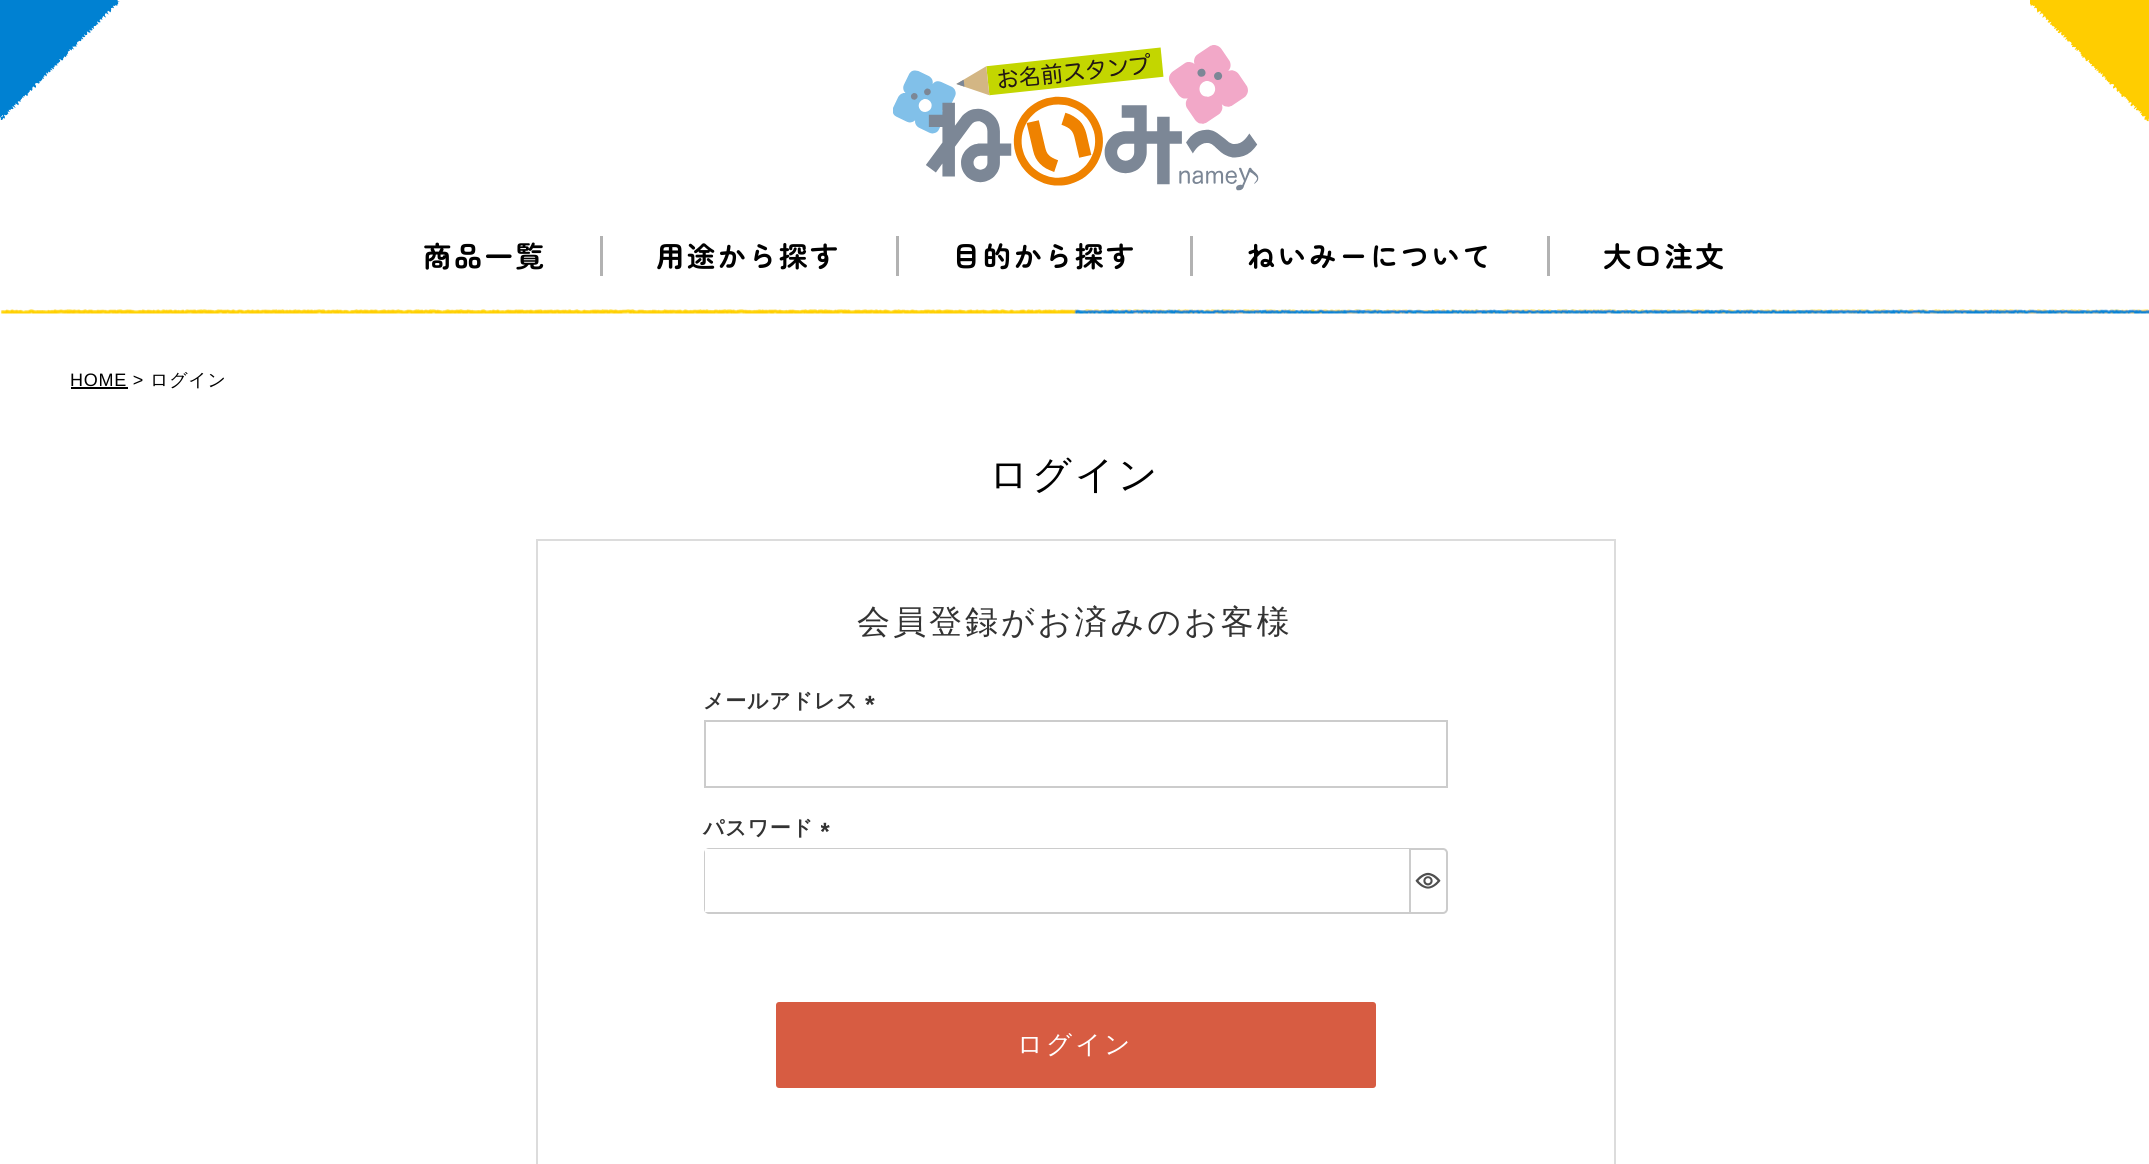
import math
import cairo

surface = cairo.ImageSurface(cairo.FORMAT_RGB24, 2149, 1164)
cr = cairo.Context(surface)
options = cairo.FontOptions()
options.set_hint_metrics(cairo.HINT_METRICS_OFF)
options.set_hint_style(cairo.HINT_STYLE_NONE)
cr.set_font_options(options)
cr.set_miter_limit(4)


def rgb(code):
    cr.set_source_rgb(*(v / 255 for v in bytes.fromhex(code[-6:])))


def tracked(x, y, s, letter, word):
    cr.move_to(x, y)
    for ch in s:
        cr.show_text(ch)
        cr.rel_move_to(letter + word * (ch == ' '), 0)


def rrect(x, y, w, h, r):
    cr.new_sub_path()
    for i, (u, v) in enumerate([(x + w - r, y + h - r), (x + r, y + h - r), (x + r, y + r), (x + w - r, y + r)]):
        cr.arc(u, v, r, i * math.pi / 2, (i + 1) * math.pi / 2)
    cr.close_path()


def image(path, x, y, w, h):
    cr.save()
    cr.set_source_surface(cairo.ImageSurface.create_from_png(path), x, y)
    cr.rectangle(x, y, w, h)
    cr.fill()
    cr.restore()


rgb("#ffffff")
cr.paint()
image("img/1.png", 0, 0, 2149, 314)
image("img/2.png", 893, 45, 366, 146)
for x, y, w, h, color in [
    (600, 236, 3, 40, "#b2b2b2"),
    (896, 236, 3, 40, "#b2b2b2"),
    (1190, 236, 3, 40, "#b2b2b2"),
    (1547, 236, 3, 40, "#b2b2b2"),
    (71, 387, 57, 2, "#000000"),
]:
    rgb(color)
    cr.rectangle(x, y, w, h)
    cr.fill()
cr.rectangle(537, 540, 1078, 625)
rgb("#dcdcdc")
cr.stroke()
cr.rectangle(705, 721, 742, 66)
rgb("#cccccc")
cr.stroke()
rrect(705, 849, 742, 64, 4)
cr.stroke()
rgb("#ffffff")
cr.rectangle(705, 849, 704, 63)
cr.fill()
rgb("#cccccc")
cr.rectangle(1409, 849, 2, 63)
cr.fill()
image("img/3.png", 1415, 872, 26, 17)
rgb("#d75c42")
rrect(776, 1002, 600, 86, 3)
cr.fill()
cr.select_font_face("Zen Maru Gothic", cairo.FONT_SLANT_NORMAL, cairo.FONT_WEIGHT_BOLD)
cr.set_font_size(28.5)
rgb("#000000")
for x, y, s in [
    (423, 267, "商品一覧"),
    (656, 267, "用途から探す"),
    (952, 267, "目的から探す"),
    (1247, 267, "ねいみーについて"),
    (1603, 267, "大口注文"),
]:
    tracked(x, y, s, 2.25, 0)
cr.select_font_face("Liberation Sans")
cr.set_font_size(18)
tracked(70, 386, "HOME >", 0.75, 0)
cr.select_font_face("WenQuanYi Zen Hei Medium")
tracked(150, 386, "ログイン", 0.75, 0)
cr.set_font_size(39)
tracked(989, 488, "ログイン", 3, 0)
cr.set_font_size(33)
rgb("#333333")
tracked(857, 633, "会員登録がお済みのお客様", 3, 0)
cr.select_font_face("WenQuanYi Zen Hei", cairo.FONT_SLANT_NORMAL, cairo.FONT_WEIGHT_BOLD)
cr.set_font_size(21)
tracked(703, 708, "メールアドレス", 0.75, 0)
cr.select_font_face("Liberation Sans", cairo.FONT_SLANT_NORMAL, cairo.FONT_WEIGHT_BOLD)
cr.set_font_size(25)
tracked(865, 713, "*", 0.75, 0)
cr.select_font_face("WenQuanYi Zen Hei", cairo.FONT_SLANT_NORMAL, cairo.FONT_WEIGHT_BOLD)
cr.set_font_size(21)
tracked(703, 835, "パスワード", 0.75, 0)
cr.save()
cr.rectangle(821, 815, 21, 21)
cr.clip()
cr.select_font_face("Liberation Sans", cairo.FONT_SLANT_NORMAL, cairo.FONT_WEIGHT_BOLD)
cr.set_font_size(25)
tracked(820, 840, "*", 0.75, 0)
cr.restore()
cr.select_font_face("WenQuanYi Zen Hei Medium")
cr.set_font_size(25.5)
rgb("#ffffff")
tracked(1017, 1053, "ログイン", 3, 0)
surface.write_to_png("page.png")
